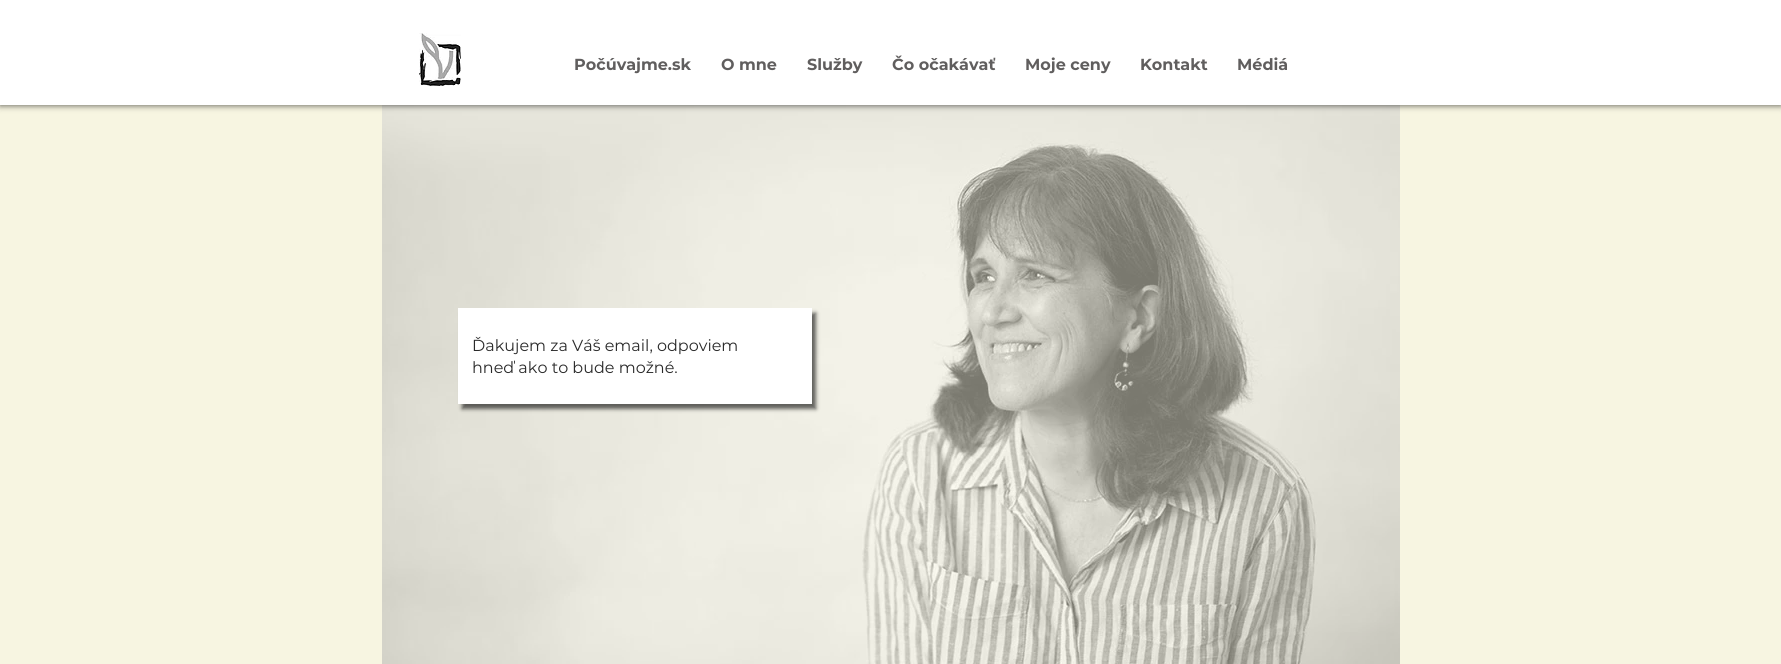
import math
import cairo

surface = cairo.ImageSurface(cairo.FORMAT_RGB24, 1781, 664)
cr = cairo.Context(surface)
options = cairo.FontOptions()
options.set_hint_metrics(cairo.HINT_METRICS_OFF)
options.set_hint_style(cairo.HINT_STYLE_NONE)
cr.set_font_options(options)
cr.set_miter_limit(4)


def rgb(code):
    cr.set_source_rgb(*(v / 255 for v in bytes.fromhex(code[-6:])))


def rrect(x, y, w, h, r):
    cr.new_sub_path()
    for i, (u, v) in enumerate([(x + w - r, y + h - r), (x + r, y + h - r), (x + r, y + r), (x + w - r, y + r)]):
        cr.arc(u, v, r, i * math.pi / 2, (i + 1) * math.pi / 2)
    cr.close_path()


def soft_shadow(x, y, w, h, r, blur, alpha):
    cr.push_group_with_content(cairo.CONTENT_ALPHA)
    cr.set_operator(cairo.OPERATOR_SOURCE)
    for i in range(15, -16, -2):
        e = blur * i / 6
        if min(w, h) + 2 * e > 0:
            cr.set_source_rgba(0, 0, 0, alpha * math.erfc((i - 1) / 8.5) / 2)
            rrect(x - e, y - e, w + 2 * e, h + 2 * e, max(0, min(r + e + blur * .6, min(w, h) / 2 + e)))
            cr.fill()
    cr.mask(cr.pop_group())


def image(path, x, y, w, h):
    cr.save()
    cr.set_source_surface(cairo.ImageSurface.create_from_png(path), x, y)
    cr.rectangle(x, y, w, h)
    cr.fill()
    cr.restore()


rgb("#f7f5e1")
cr.paint()
image("img/2.png", 382, 105, 1018, 559)
rgb("#000000")
soft_shadow(0, 0, 1781, 105, 0, 3.5, 0.7)
rgb("#ffffff")
cr.rectangle(0, 0, 1781, 105)
cr.fill()
image("img/1.png", 419, 33, 42, 53)
rgb("#000000")
soft_shadow(462, 313, 354, 96, 0, 2, 0.6)
rgb("#ffffff")
cr.rectangle(458, 308, 354, 96)
cr.fill()
cr.select_font_face("Montserrat", cairo.FONT_SLANT_NORMAL, cairo.FONT_WEIGHT_BOLD)
cr.set_font_size(16)
rgb("#605e5e")
for x, y, s in [
    (574, 70, "Počúvajme.sk"),
    (721, 70, "O mne"),
    (807, 70, "Služby"),
    (892, 70, "Čo očakávať"),
    (1025, 70, "Moje ceny"),
    (1140, 70, "Kontakt"),
    (1237, 70, "Médiá"),
]:
    cr.move_to(x, y)
    cr.show_text(s)
cr.select_font_face("Montserrat")
rgb("#2a2a2a")
cr.move_to(472, 351)
cr.show_text("Ďakujem za Váš email, odpoviem")
cr.move_to(472, 373)
cr.show_text("hneď ako to bude možné.")
surface.write_to_png("page.png")
